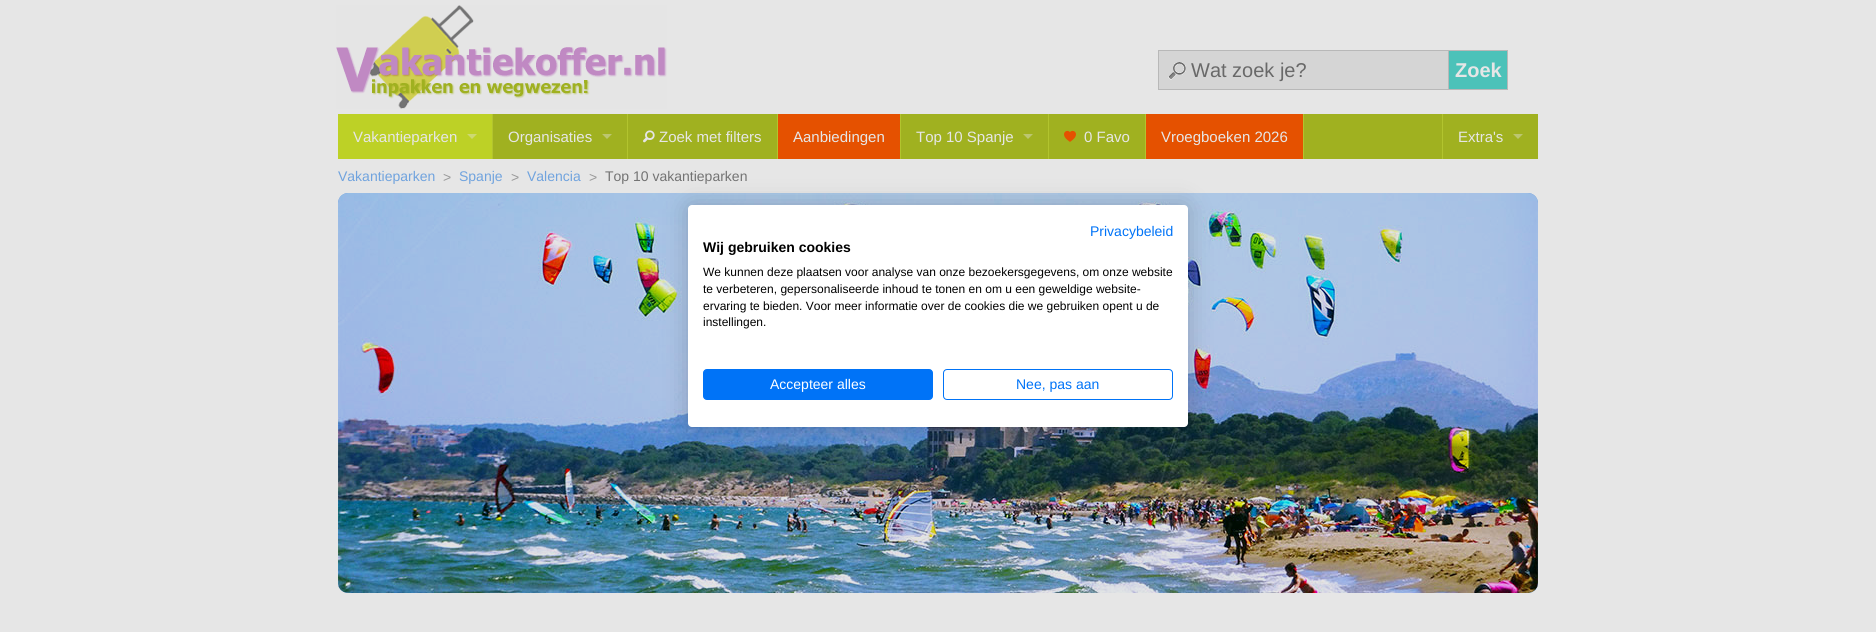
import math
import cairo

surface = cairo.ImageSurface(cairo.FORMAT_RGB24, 1876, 632)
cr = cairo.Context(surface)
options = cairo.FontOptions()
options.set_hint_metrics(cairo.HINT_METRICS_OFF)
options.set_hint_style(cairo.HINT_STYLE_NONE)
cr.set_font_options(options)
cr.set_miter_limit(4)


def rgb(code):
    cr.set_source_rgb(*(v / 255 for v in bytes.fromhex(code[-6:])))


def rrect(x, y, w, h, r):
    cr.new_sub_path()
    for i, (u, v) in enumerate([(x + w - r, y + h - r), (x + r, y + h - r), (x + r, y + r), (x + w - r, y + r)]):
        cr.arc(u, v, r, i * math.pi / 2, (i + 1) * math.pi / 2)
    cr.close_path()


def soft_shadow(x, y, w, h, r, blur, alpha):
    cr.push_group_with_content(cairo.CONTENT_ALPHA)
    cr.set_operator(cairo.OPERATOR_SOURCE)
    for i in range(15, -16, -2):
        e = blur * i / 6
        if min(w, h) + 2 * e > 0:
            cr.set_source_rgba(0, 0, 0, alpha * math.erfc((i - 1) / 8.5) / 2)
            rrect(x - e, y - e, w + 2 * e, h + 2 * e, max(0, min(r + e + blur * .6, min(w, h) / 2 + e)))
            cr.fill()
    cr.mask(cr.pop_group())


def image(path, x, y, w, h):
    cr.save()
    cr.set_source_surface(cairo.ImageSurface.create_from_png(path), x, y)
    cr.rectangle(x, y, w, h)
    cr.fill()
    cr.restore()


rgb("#e6e6e6")
cr.paint()
image("img/1.png", 336, 5, 331, 104)
rgb("#d5d5d5")
cr.rectangle(1159, 51, 289, 38)
cr.fill()
image("img/2.png", 1168, 62, 18, 18)
cr.rectangle(1158.5, 50.5, 299, 39)
rgb("#b8b8b8")
cr.set_line_width(1)
cr.stroke()
rgb("#4cc2b9")
cr.rectangle(1448.5, 50.5, 59, 39)
cr.fill_preserve()
rgb("#b8b8b8")
cr.stroke()
rgb("#a0b120")
cr.rectangle(493, 114, 1045, 45)
cr.fill()
rgb("#bdd126")
cr.rectangle(338, 114, 154, 45)
cr.fill()
rgb("#cdd972")
cr.new_path()
cr.move_to(467, 134)
cr.line_to(477, 134)
cr.line_to(472, 139)
cr.close_path()
cr.fill()
rgb("#b2c42e")
cr.rectangle(492, 114, 1, 45)
cr.fill()
rgb("#bcc670")
cr.new_path()
cr.move_to(602, 134)
cr.line_to(612, 134)
cr.line_to(607, 139)
cr.close_path()
cr.fill()
rgb("#b2c42e")
cr.rectangle(627, 114, 1, 45)
cr.fill()
image("img/3.png", 643, 130, 12, 13)
for x, y, w, h, color in [
    (777, 114, 1, 45, "#b2c42e"),
    (778, 114, 122, 45, "#e55100"),
    (900, 114, 1, 45, "#b2c42e"),
]:
    rgb(color)
    cr.rectangle(x, y, w, h)
    cr.fill()
rgb("#bcc670")
cr.new_path()
cr.move_to(1023, 134)
cr.line_to(1033, 134)
cr.line_to(1028, 139)
cr.close_path()
cr.fill()
rgb("#b2c42e")
cr.rectangle(1048, 114, 1, 45)
cr.fill()
image("img/4.png", 1064, 130, 12, 12)
for x, y, w, h, color in [
    (1145, 114, 1, 45, "#b2c42e"),
    (1146, 114, 157, 45, "#e55100"),
    (1303, 114, 1, 45, "#b2c42e"),
    (1442, 114, 1, 45, "#b2c42e"),
]:
    rgb(color)
    cr.rectangle(x, y, w, h)
    cr.fill()
rgb("#bcc670")
cr.new_path()
cr.move_to(1513, 134)
cr.line_to(1523, 134)
cr.line_to(1518, 139)
cr.close_path()
cr.fill()
rgb("#70a3de")
rrect(338, 193, 1200, 400, 10)
cr.fill()
image("img/5.png", 338, 193, 1200, 400)
rgb("#000000")
soft_shadow(688, 205, 500, 222, 4, 12, 0.2)
rgb("#ffffff")
rrect(688, 205, 500, 222, 4)
cr.fill()
rgb("#0073f7")
rrect(703.5, 369.5, 229, 30, 3.5)
cr.fill_preserve()
cr.stroke()
rrect(943.5, 369.5, 229, 30, 3.5)
cr.stroke()
cr.select_font_face("Liberation Sans")
cr.set_font_size(20)
rgb("#696969")
cr.move_to(1191, 77)
cr.show_text("Wat zoek je?")
cr.select_font_face("Liberation Sans", cairo.FONT_SLANT_NORMAL, cairo.FONT_WEIGHT_BOLD)
rgb("#e6e6e6")
cr.move_to(1455, 77)
cr.show_text("Zoek")
cr.select_font_face("Liberation Sans")
cr.set_font_size(15)
for x, y, s in [
    (353, 142, "Vakantieparken"),
    (508, 142, "Organisaties"),
    (659, 142, "Zoek met filters"),
    (793, 142, "Aanbiedingen"),
    (916, 142, "Top 10 Spanje"),
    (1084, 142, "0 Favo"),
    (1161, 142, "Vroegboeken 2026"),
    (1458, 142, "Extra's"),
]:
    cr.move_to(x, y)
    cr.show_text(s)
cr.set_font_size(14)
rgb("#70a3de")
cr.move_to(338, 181)
cr.show_text("Vakantieparken")
rgb("#999999")
cr.move_to(443, 182)
cr.show_text(">")
rgb("#70a3de")
cr.move_to(459, 181)
cr.show_text("Spanje")
rgb("#999999")
cr.move_to(511, 182)
cr.show_text(">")
rgb("#70a3de")
cr.move_to(527, 181)
cr.show_text("Valencia")
rgb("#999999")
cr.move_to(589, 182)
cr.show_text(">")
rgb("#737373")
cr.move_to(605, 181)
cr.show_text("Top 10 vakantieparken")
rgb("#0073f7")
cr.move_to(1090, 236)
cr.show_text("Privacybeleid")
cr.select_font_face("Liberation Sans", cairo.FONT_SLANT_NORMAL, cairo.FONT_WEIGHT_BOLD)
rgb("#000000")
cr.move_to(703, 252)
cr.show_text("Wij gebruiken cookies")
cr.select_font_face("Liberation Sans")
cr.set_font_size(12)
for x, y, s in [
    (703, 276, "We kunnen deze plaatsen voor analyse van onze bezoekersgegevens, om onze website"),
    (703, 293, "te verbeteren, gepersonaliseerde inhoud te tonen en om u een geweldige website-"),
    (703, 310, "ervaring te bieden. Voor meer informatie over de cookies die we gebruiken opent u de"),
    (703, 326, "instellingen."),
]:
    cr.move_to(x, y)
    cr.show_text(s)
cr.set_font_size(14)
rgb("#ffffff")
cr.move_to(770, 389)
cr.show_text("Accepteer alles")
rgb("#0073f7")
cr.move_to(1016, 389)
cr.show_text("Nee, pas aan")
surface.write_to_png("page.png")
